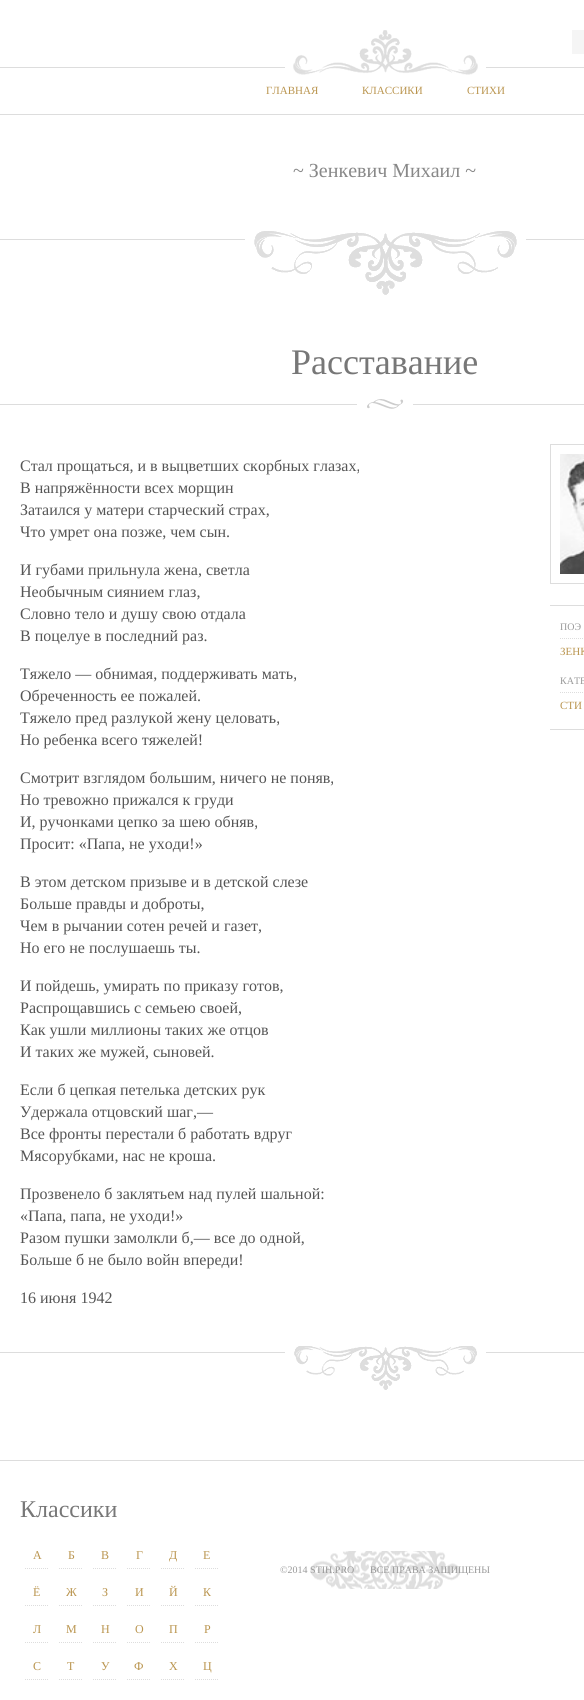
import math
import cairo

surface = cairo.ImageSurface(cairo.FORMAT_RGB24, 584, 1700)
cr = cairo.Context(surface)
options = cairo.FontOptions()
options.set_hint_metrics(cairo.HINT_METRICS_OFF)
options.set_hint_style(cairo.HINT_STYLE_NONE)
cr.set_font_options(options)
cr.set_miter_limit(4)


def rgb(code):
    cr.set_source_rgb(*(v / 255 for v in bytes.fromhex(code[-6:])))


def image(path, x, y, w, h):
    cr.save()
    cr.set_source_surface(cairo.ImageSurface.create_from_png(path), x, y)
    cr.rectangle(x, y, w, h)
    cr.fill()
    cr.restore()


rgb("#ffffff")
cr.paint()
image("img/1.png", 0, 30, 584, 45)
rgb("#f5f5f5")
cr.rectangle(572, 30, 12, 24)
cr.fill()
rgb("#dddddd")
cr.rectangle(0, 114, 584, 1)
cr.fill()
image("img/2.png", 0, 231, 584, 64)
image("img/3.png", 0, 1346, 584, 44)
image("img/4.png", 0, 399, 584, 10)
cr.rectangle(550.5, 444.5, 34, 139)
cr.set_line_width(1)
cr.stroke()
image("img/5.png", 560, 454, 24, 120)
cr.rectangle(550, 729, 34, 1)
cr.fill()
cr.rectangle(550, 605, 34, 1)
cr.fill()
cr.new_path()
cr.move_to(560, 638.5)
cr.line_to(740, 638.5)
cr.move_to(560, 692.5)
cr.line_to(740, 692.5)
cr.set_dash([1, 1])
cr.stroke()
cr.rectangle(0, 1460, 584, 1)
cr.fill()
cr.new_path()
cr.move_to(25, 1568.5)
cr.line_to(49, 1568.5)
cr.stroke()
cr.new_path()
cr.move_to(59, 1568.5)
cr.line_to(83, 1568.5)
cr.stroke()
cr.new_path()
cr.move_to(93, 1568.5)
cr.line_to(117, 1568.5)
cr.stroke()
cr.new_path()
cr.move_to(127, 1568.5)
cr.line_to(151, 1568.5)
cr.stroke()
cr.new_path()
cr.move_to(161, 1568.5)
cr.line_to(185, 1568.5)
cr.stroke()
cr.new_path()
cr.move_to(195, 1568.5)
cr.line_to(219, 1568.5)
cr.stroke()
cr.new_path()
cr.move_to(25, 1605.5)
cr.line_to(49, 1605.5)
cr.stroke()
cr.new_path()
cr.move_to(59, 1605.5)
cr.line_to(83, 1605.5)
cr.stroke()
cr.new_path()
cr.move_to(93, 1605.5)
cr.line_to(117, 1605.5)
cr.stroke()
cr.new_path()
cr.move_to(127, 1605.5)
cr.line_to(151, 1605.5)
cr.stroke()
cr.new_path()
cr.move_to(161, 1605.5)
cr.line_to(185, 1605.5)
cr.stroke()
cr.new_path()
cr.move_to(195, 1605.5)
cr.line_to(219, 1605.5)
cr.stroke()
cr.new_path()
cr.move_to(25, 1642.5)
cr.line_to(49, 1642.5)
cr.stroke()
cr.new_path()
cr.move_to(59, 1642.5)
cr.line_to(83, 1642.5)
cr.stroke()
cr.new_path()
cr.move_to(93, 1642.5)
cr.line_to(117, 1642.5)
cr.stroke()
cr.new_path()
cr.move_to(127, 1642.5)
cr.line_to(151, 1642.5)
cr.stroke()
cr.new_path()
cr.move_to(161, 1642.5)
cr.line_to(185, 1642.5)
cr.stroke()
cr.new_path()
cr.move_to(195, 1642.5)
cr.line_to(219, 1642.5)
cr.stroke()
cr.new_path()
cr.move_to(25, 1679.5)
cr.line_to(49, 1679.5)
cr.stroke()
cr.new_path()
cr.move_to(59, 1679.5)
cr.line_to(83, 1679.5)
cr.stroke()
cr.new_path()
cr.move_to(93, 1679.5)
cr.line_to(117, 1679.5)
cr.stroke()
cr.new_path()
cr.move_to(127, 1679.5)
cr.line_to(151, 1679.5)
cr.stroke()
cr.new_path()
cr.move_to(161, 1679.5)
cr.line_to(185, 1679.5)
cr.stroke()
cr.new_path()
cr.move_to(195, 1679.5)
cr.line_to(219, 1679.5)
cr.stroke()
image("img/6.png", 310, 1551, 150, 38)
cr.select_font_face("Liberation Serif")
cr.set_font_size(11)
rgb("#ba954f")
for x, y, s in [
    (266, 94, "ГЛАВНАЯ"),
    (362, 94, "КЛАССИКИ"),
    (467, 94, "СТИХИ"),
]:
    cr.move_to(x, y)
    cr.show_text(s)
cr.set_font_size(20)
rgb("#888888")
cr.move_to(293, 177)
cr.show_text("~ Зенкевич Михаил ~")
cr.set_font_size(36)
rgb("#777777")
cr.move_to(291, 374)
cr.show_text("Расставание")
cr.set_font_size(16)
rgb("#555555")
for x, y, s in [
    (20, 471, "Стал прощаться, и в выцветших скорбных глазах,"),
    (20, 493, "В напряжённости всех морщин"),
    (20, 515, "Затаился у матери старческий страх,"),
    (20, 537, "Что умрет она позже, чем сын."),
    (20, 575, "И губами прильнула жена, светла"),
    (20, 597, "Необычным сиянием глаз,"),
    (20, 619, "Словно тело и душу свою отдала"),
    (20, 641, "В поцелуе в последний раз."),
    (20, 679, "Тяжело — обнимая, поддерживать мать,"),
    (20, 701, "Обреченность ее пожалей."),
    (20, 723, "Тяжело пред разлукой жену целовать,"),
    (20, 745, "Но ребенка всего тяжелей!"),
    (20, 783, "Смотрит взглядом большим, ничего не поняв,"),
    (20, 805, "Но тревожно прижался к груди"),
    (20, 827, "И, ручонками цепко за шею обняв,"),
    (20, 849, "Просит: «Папа, не уходи!»"),
    (20, 887, "В этом детском призыве и в детской слезе"),
    (20, 909, "Больше правды и доброты,"),
    (20, 931, "Чем в рычании сотен речей и газет,"),
    (20, 953, "Но его не послушаешь ты."),
    (20, 991, "И пойдешь, умирать по приказу готов,"),
    (20, 1013, "Распрощавшись с семьею своей,"),
    (20, 1035, "Как ушли миллионы таких же отцов"),
    (20, 1057, "И таких же мужей, сыновей."),
    (20, 1095, "Если б цепкая петелька детских рук"),
    (20, 1117, "Удержала отцовский шаг,—"),
    (20, 1139, "Все фронты перестали б работать вдруг"),
    (20, 1161, "Мясорубками, нас не кроша."),
    (20, 1199, "Прозвенело б заклятьем над пулей шальной:"),
    (20, 1221, "«Папа, папа, не уходи!»"),
    (20, 1243, "Разом пушки замолкли б,— все до одной,"),
    (20, 1265, "Больше б не было войн впереди!"),
    (20, 1303, "16 июня 1942"),
]:
    cr.move_to(x, y)
    cr.show_text(s)
cr.set_font_size(10)
rgb("#999999")
cr.move_to(560, 630)
cr.show_text("ПОЭ")
cr.set_font_size(11)
rgb("#ba954f")
cr.move_to(560, 655)
cr.show_text("ЗЕНК")
cr.set_font_size(10)
rgb("#999999")
cr.move_to(560, 684)
cr.show_text("КАТЕ")
cr.set_font_size(11)
rgb("#ba954f")
cr.move_to(560, 709)
cr.show_text("СТИ")
cr.set_font_size(24)
rgb("#777777")
cr.move_to(20, 1517)
cr.show_text("Классики")
cr.set_font_size(12)
rgb("#ba954f")
for x, y, s in [
    (33, 1559, "А"),
    (68, 1559, "Б"),
    (101, 1559, "В"),
    (136, 1559, "Г"),
    (169, 1559, "Д"),
    (203, 1559, "Е"),
    (33, 1596, "Ё"),
    (66, 1596, "Ж"),
    (102, 1596, "З"),
    (135, 1596, "И"),
    (169, 1596, "Й"),
    (203, 1596, "К"),
    (33, 1633, "Л"),
    (66, 1633, "М"),
    (101, 1633, "Н"),
    (135, 1633, "О"),
    (169, 1633, "П"),
    (204, 1633, "Р"),
    (33, 1670, "С"),
    (67, 1670, "Т"),
    (101, 1670, "У"),
    (134, 1670, "Ф"),
    (169, 1670, "Х"),
    (203, 1670, "Ц"),
]:
    cr.move_to(x, y)
    cr.show_text(s)
cr.set_font_size(10)
rgb("#999999")
cr.move_to(280, 1573)
cr.show_text("©2014 STIH.PRO")
cr.move_to(370, 1573)
cr.show_text("ВСЕ ПРАВА ЗАЩИЩЕНЫ")
surface.write_to_png("page.png")
